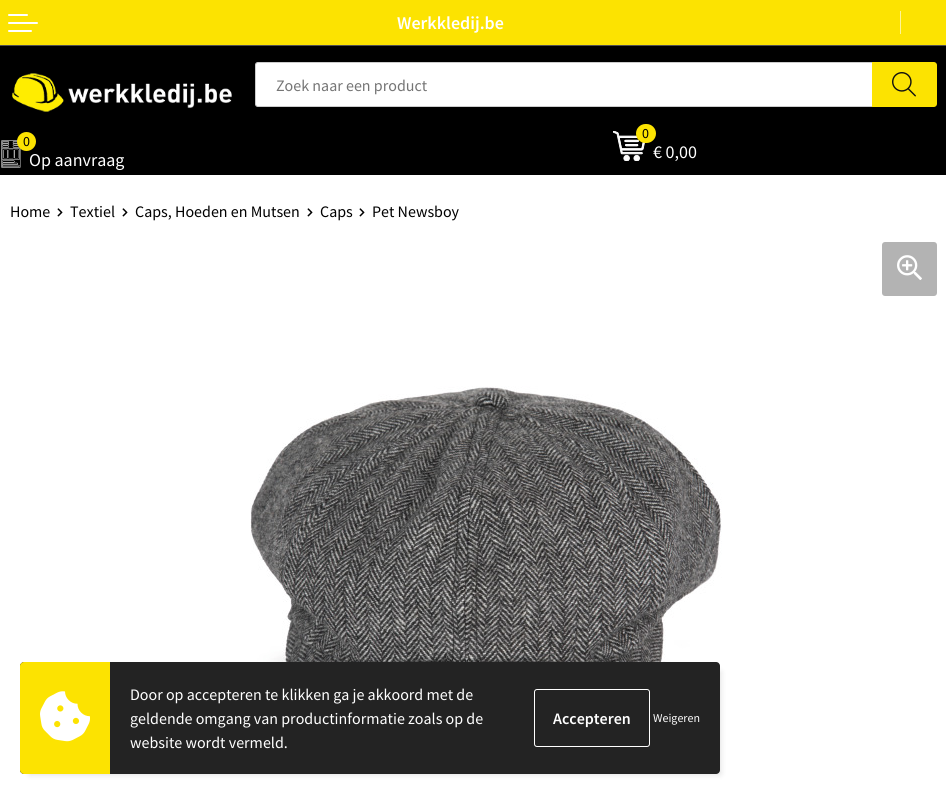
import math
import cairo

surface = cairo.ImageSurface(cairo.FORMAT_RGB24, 946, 794)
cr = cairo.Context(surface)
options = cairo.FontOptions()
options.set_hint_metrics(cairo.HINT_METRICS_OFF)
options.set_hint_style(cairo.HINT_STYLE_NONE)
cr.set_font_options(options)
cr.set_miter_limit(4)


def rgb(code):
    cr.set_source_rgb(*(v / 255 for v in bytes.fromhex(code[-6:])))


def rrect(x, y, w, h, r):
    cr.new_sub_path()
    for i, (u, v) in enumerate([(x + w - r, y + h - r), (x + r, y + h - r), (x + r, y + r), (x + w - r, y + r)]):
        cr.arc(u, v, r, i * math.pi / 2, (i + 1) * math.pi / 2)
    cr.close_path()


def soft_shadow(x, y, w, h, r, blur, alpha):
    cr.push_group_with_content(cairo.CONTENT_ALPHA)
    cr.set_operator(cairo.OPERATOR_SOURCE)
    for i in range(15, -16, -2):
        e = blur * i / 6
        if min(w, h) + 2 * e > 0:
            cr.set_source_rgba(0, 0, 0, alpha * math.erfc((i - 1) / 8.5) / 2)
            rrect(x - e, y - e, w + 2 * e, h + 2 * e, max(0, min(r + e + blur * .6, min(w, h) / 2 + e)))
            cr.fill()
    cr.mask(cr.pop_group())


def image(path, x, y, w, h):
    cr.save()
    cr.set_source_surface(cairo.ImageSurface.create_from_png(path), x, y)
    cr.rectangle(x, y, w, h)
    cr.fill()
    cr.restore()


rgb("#ffffff")
cr.paint()
rgb("#000000")
cr.rectangle(0, 46, 946, 129)
cr.fill()
rgb("#fce301")
cr.rectangle(0, 0, 946, 45)
cr.fill()
image("img/1.png", 8, 14, 30, 18)
rgb("#fef499")
cr.rectangle(900, 11, 1, 23)
cr.fill()
image("img/2.png", 12, 73, 220, 39)
rgb("#ffffff")
cr.new_path()
cr.move_to(258, 62.5)
cr.line_to(872.5, 62.5)
cr.line_to(872.5, 106.5)
cr.line_to(258, 106.5)
cr.curve_to(256.5, 106.5, 255.5, 105.5, 255.5, 104)
cr.line_to(255.5, 65)
cr.curve_to(255.5, 63.5, 256.5, 62.5, 258, 62.5)
cr.close_path()
cr.fill_preserve()
rgb("#cccccc")
cr.set_line_width(1)
cr.stroke()
rgb("#fce301")
cr.new_path()
cr.move_to(872, 62)
cr.line_to(934, 62)
cr.curve_to(935.5, 62, 937, 63.5, 937, 65)
cr.line_to(937, 104)
cr.curve_to(937, 105.5, 935.5, 107, 934, 107)
cr.line_to(872, 107)
cr.close_path()
cr.fill()
image("img/3.png", 892, 72, 24, 25)
rgb("#505050")
cr.rectangle(0, 45, 946, 1)
cr.fill()
image("img/4.png", 1, 140, 20, 28)
rgb("#fce301")
cr.arc(26.5, 141.5, 9.5, 0, 2 * math.pi)
cr.fill()
image("img/5.png", 613, 131, 32, 30)
rrect(636, 124, 20, 19, 9.5)
cr.fill()
image("img/6.png", 57, 208, 6, 9)
image("img/6.png", 122, 208, 6, 9)
image("img/6.png", 307, 208, 6, 9)
image("img/6.png", 359, 208, 6, 9)
rgb("#b3b3b3")
rrect(882, 242, 55, 54, 3)
cr.fill()
image("img/7.png", 897, 255, 25, 25)
image("img/8.png", 250, 386, 472, 339)
rgb("#000000")
soft_shadow(30, 672, 690, 102, 0, 3.5, 0.15)
rgb("#232323")
rrect(20, 662, 700, 112, 4)
cr.fill()
rgb("#fce301")
cr.new_path()
cr.move_to(24, 662)
cr.line_to(110, 662)
cr.line_to(110, 774)
cr.line_to(24, 774)
cr.curve_to(22, 774, 20, 772, 20, 770)
cr.line_to(20, 666)
cr.curve_to(20, 664, 22, 662, 24, 662)
cr.close_path()
cr.fill()
image("img/9.png", 40, 691, 50, 51)
rrect(534.5, 689.5, 115, 57, 2.5)
rgb("#ffffff")
cr.stroke()
cr.select_font_face("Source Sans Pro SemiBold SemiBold")
cr.set_font_size(18)
cr.move_to(397, 29)
cr.show_text("Werkkledij.be")
cr.select_font_face("Source Sans Pro")
cr.set_font_size(16)
rgb("#757575")
cr.move_to(276, 91)
cr.show_text("Zoek naar een product")
cr.set_font_size(14)
rgb("#000000")
cr.move_to(23, 146)
cr.show_text("0")
cr.set_font_size(18)
rgb("#ffffff")
cr.move_to(29, 166)
cr.show_text("Op aanvraag")
cr.set_font_size(14)
rgb("#000000")
cr.move_to(642, 138)
cr.show_text("0")
cr.set_font_size(18)
rgb("#ffffff")
cr.move_to(653, 158)
cr.show_text("€ 0,00")
cr.set_font_size(16)
rgb("#000000")
for x, y, s in [
    (10, 217, "Home"),
    (70, 217, "Textiel"),
    (135, 217, "Caps, Hoeden en Mutsen"),
    (320, 217, "Caps"),
    (372, 217, "Pet Newsboy"),
]:
    cr.move_to(x, y)
    cr.show_text(s)
rgb("#ffffff")
cr.move_to(130, 700)
cr.show_text("Door op accepteren te klikken ga je akkoord met de")
cr.move_to(130, 724)
cr.show_text("geldende omgang van productinformatie zoals op de")
cr.select_font_face("Source Sans Pro SemiBold SemiBold")
cr.move_to(553, 724)
cr.show_text("Accepteren")
cr.select_font_face("Source Sans Pro")
cr.set_font_size(12)
cr.move_to(653, 722)
cr.show_text("Weigeren")
cr.set_font_size(16)
cr.move_to(130, 748)
cr.show_text("website wordt vermeld.")
surface.write_to_png("page.png")
